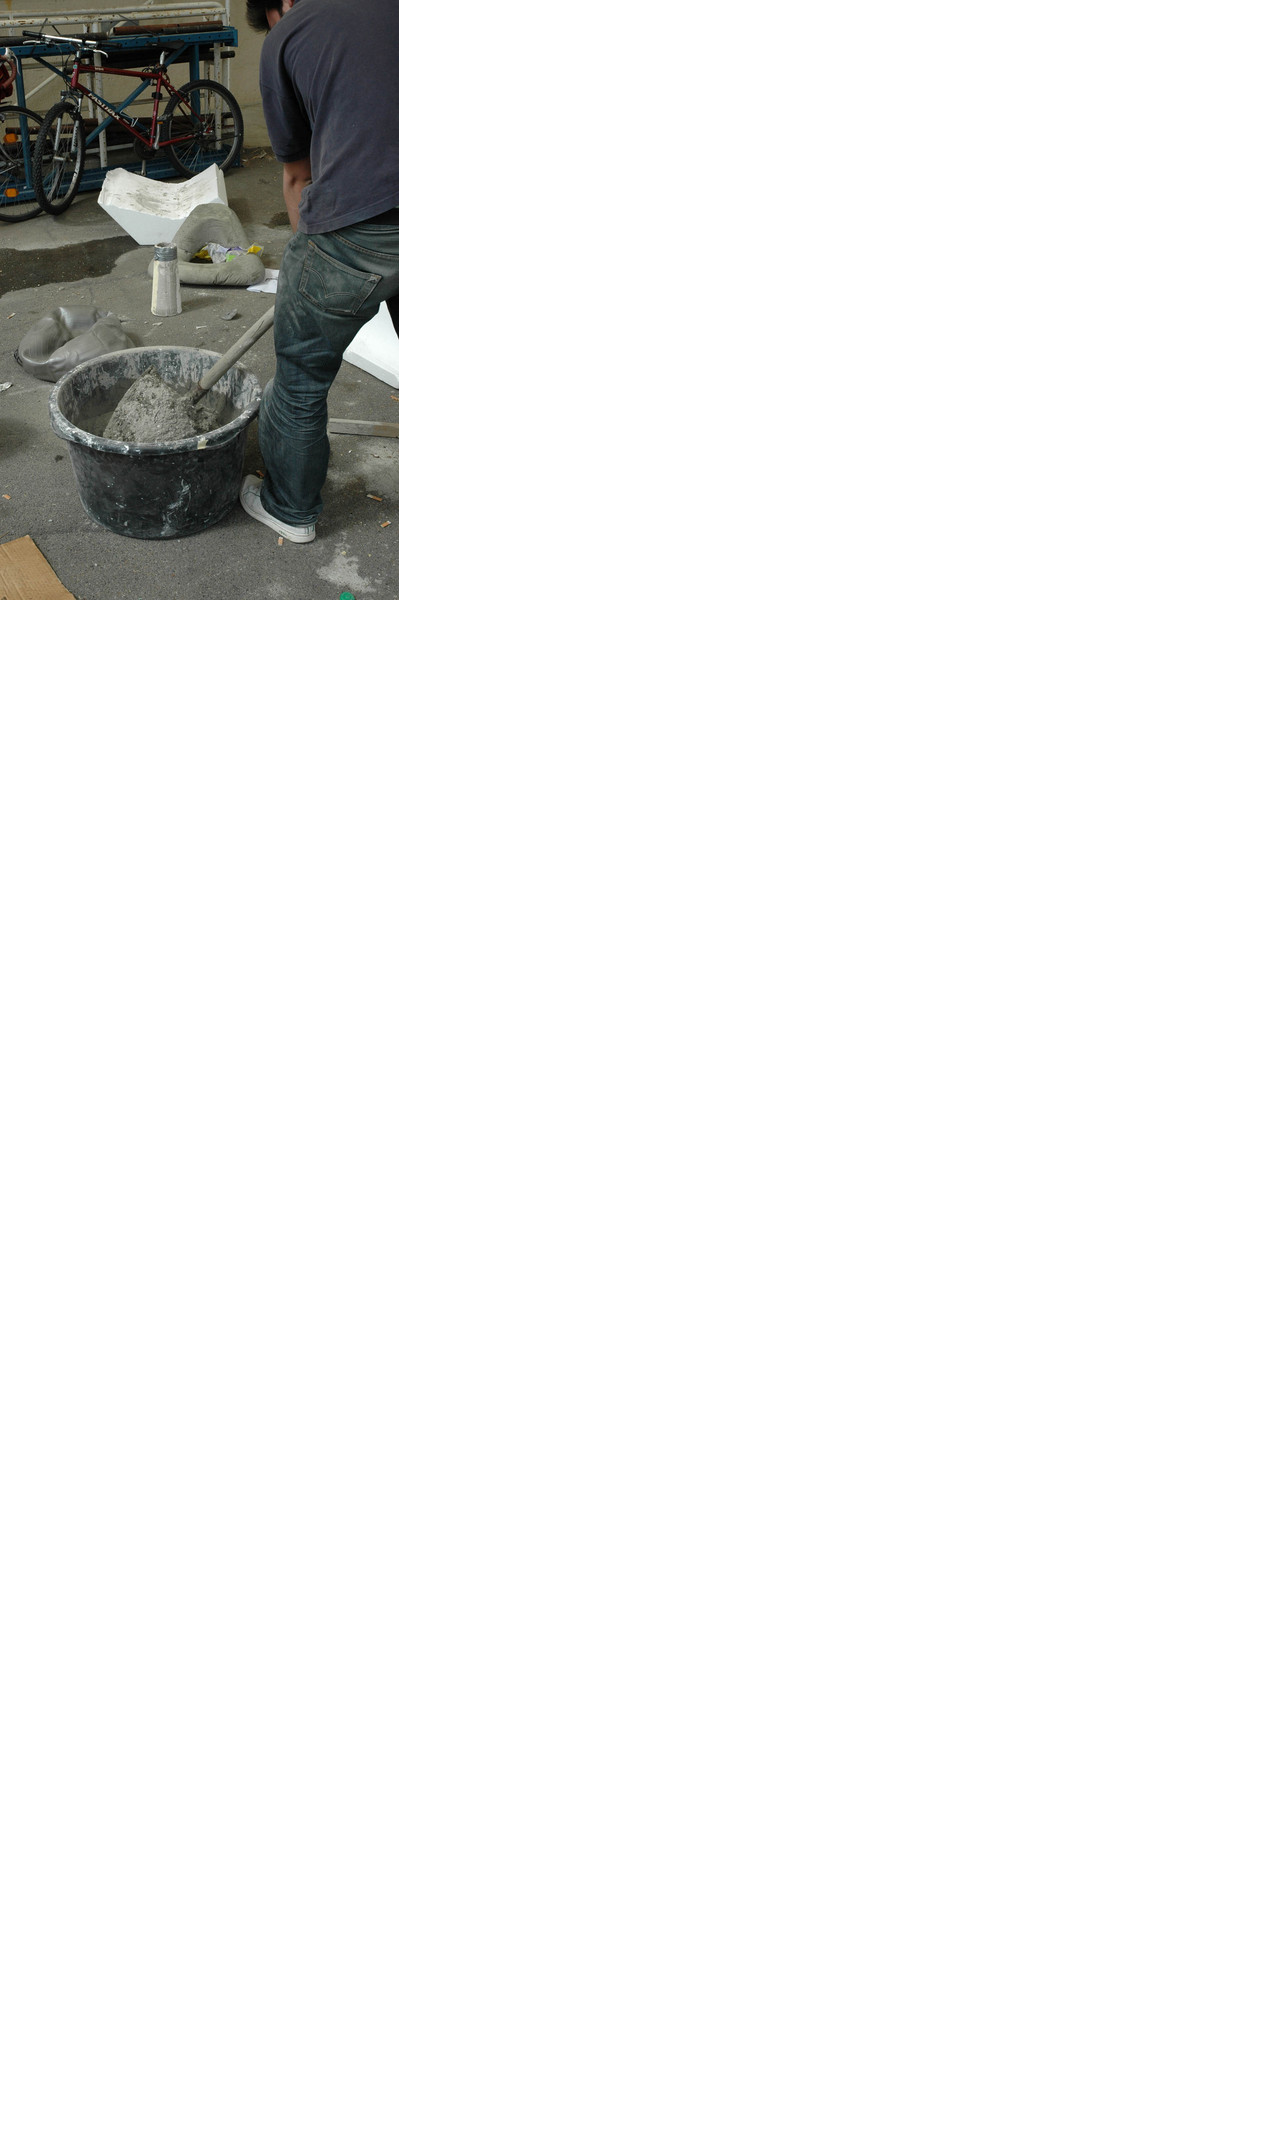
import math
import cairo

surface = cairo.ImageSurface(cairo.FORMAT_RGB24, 1261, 2134)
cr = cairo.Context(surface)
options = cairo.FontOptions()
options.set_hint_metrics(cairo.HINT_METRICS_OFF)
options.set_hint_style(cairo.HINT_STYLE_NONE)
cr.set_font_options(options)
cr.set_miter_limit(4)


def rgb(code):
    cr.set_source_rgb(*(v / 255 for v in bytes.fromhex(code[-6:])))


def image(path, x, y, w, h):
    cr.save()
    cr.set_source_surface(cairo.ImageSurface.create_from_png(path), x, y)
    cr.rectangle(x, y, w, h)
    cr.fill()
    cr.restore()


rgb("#ffffff")
cr.paint()
image("img/1.png", 0, 0, 399, 600)
surface.write_to_png("page.png")
